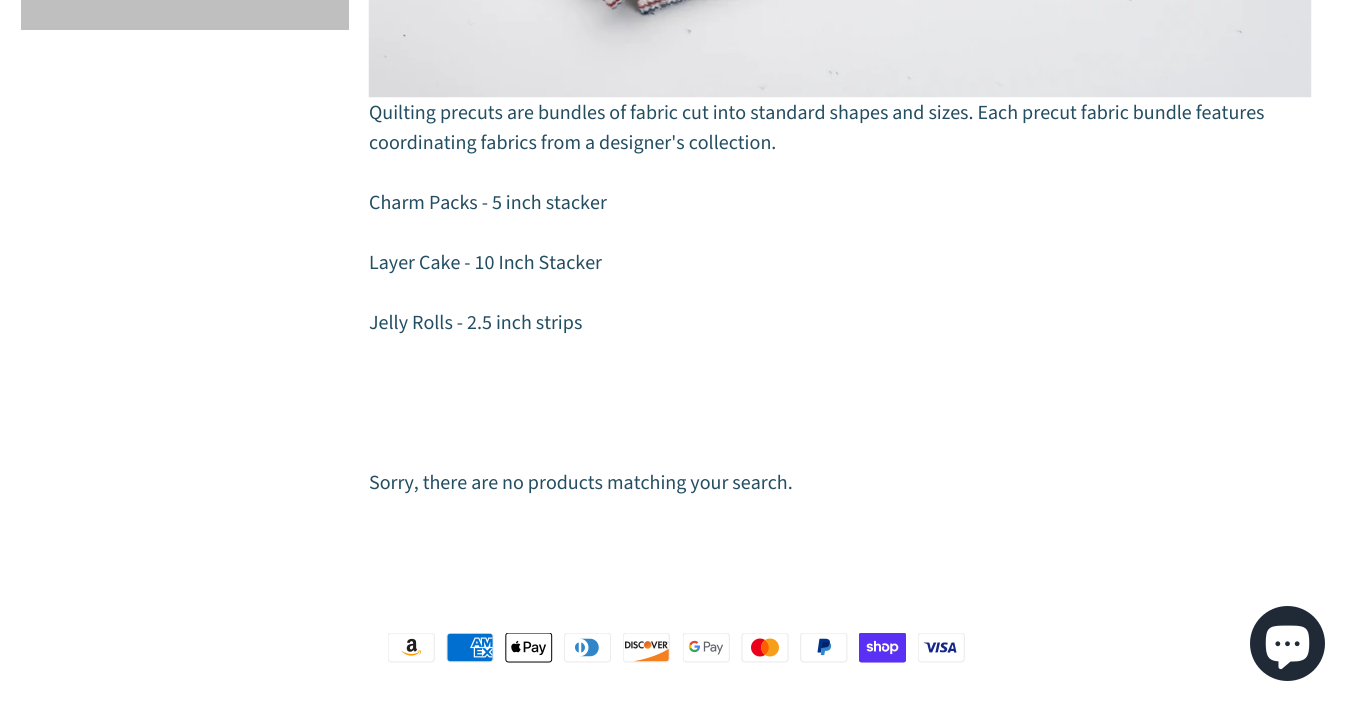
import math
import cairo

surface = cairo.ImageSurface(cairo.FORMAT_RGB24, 1352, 707)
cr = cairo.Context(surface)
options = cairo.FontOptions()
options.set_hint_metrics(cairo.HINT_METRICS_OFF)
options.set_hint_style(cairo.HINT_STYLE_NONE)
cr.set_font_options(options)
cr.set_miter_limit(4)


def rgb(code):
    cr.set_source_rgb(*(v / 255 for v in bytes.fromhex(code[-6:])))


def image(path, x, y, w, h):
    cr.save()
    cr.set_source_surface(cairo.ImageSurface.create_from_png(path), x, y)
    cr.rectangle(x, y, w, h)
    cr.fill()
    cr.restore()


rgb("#ffffff")
cr.paint()
rgb("#bfbfbf")
cr.rectangle(21, 0, 328, 30)
cr.fill()
image("img/1.png", 368, 0, 944, 98)
image("img/2.png", 388, 633, 47, 30)
image("img/3.png", 446, 633, 48, 30)
image("img/4.png", 505, 633, 48, 30)
image("img/5.png", 564, 633, 47, 30)
image("img/6.png", 623, 633, 47, 30)
image("img/7.png", 683, 633, 47, 30)
image("img/8.png", 741, 633, 48, 30)
image("img/9.png", 800, 633, 48, 30)
image("img/10.png", 859, 633, 47, 30)
image("img/11.png", 918, 633, 47, 30)
rgb("#202a36")
cr.arc(1287.5, 643.5, 37.5, 0, 2 * math.pi)
cr.fill()
image("img/12.png", 1265, 625, 45, 45)
cr.select_font_face("Source Sans Pro")
cr.set_font_size(20)
rgb("#234d61")
for x, y, s in [
    (369, 119, "Quilting precuts are bundles of fabric cut into standard shapes and sizes. Each precut fabric bundle features"),
    (369, 149, "coordinating fabrics from a designer's collection."),
    (369, 209, "Charm Packs - 5 inch stacker"),
    (369, 269, "Layer Cake - 10 Inch Stacker"),
    (369, 329, "Jelly Rolls - 2.5 inch strips"),
    (369, 489, "Sorry, there are no products matching your search."),
]:
    cr.move_to(x, y)
    cr.show_text(s)
surface.write_to_png("page.png")
